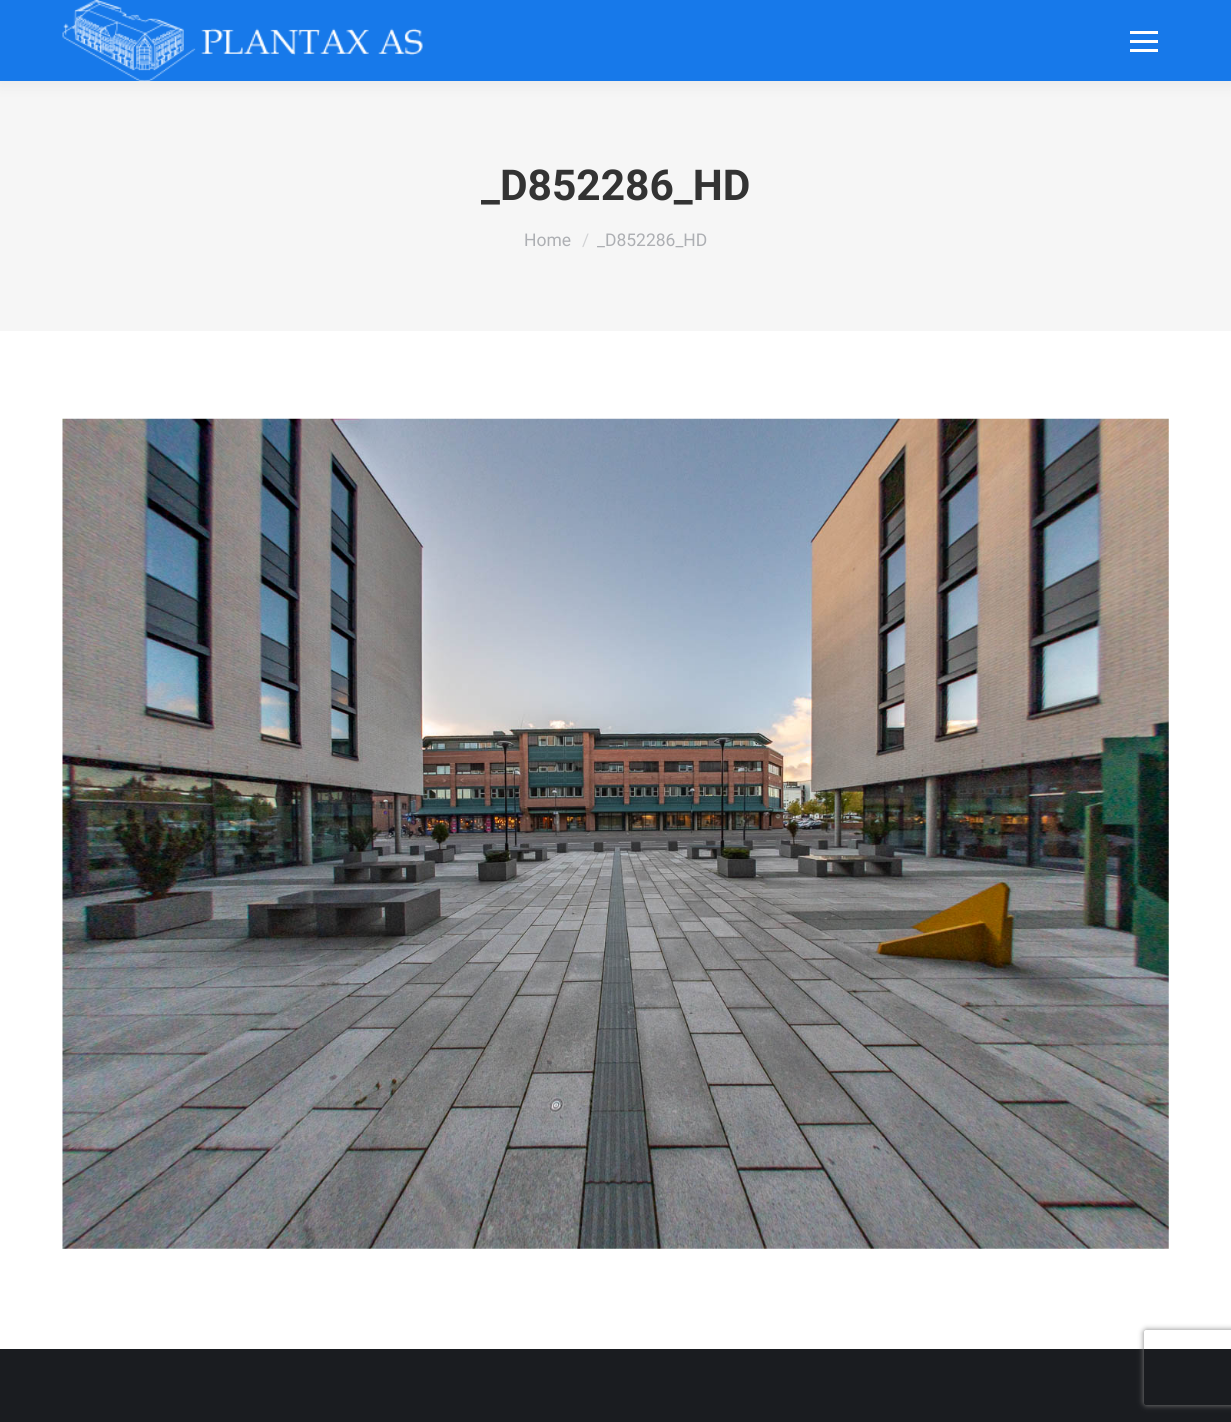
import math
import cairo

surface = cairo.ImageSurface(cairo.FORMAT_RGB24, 1231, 1422)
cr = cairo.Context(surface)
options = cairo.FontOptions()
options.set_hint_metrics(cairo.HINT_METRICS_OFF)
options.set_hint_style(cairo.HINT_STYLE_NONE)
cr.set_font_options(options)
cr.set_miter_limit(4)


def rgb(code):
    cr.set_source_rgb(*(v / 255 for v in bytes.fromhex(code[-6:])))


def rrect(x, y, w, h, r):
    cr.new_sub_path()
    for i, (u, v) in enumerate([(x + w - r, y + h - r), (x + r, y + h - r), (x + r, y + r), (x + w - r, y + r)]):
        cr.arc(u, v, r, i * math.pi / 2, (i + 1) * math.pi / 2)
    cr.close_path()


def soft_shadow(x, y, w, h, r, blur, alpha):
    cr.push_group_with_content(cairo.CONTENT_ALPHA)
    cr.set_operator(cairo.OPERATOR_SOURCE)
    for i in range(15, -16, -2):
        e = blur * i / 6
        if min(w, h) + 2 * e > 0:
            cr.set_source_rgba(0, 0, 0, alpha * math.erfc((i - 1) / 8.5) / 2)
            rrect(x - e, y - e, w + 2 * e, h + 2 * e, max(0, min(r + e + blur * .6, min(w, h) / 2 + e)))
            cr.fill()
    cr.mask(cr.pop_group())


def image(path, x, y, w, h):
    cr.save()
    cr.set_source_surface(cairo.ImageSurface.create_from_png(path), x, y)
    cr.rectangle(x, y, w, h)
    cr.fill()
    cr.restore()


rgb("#ffffff")
cr.paint()
rgb("#f6f6f6")
cr.rectangle(0, 81, 1231, 250)
cr.fill()
rgb("#000000")
soft_shadow(-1, -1, 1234, 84, 0, 9.5, 0.07)
rgb("#1779ea")
cr.rectangle(0, 0, 1231, 81)
cr.fill()
image("img/1.png", 62, 0, 361, 81)
for x, y, w, h, color in [
    (1130, 31, 28, 3, "#ffffff"),
    (1130, 40, 28, 3, "#ffffff"),
    (1130, 49, 28, 3, "#ffffff"),
]:
    rgb(color)
    cr.rectangle(x, y, w, h)
    cr.fill()
image("img/2.png", 62, 418, 1107, 831)
rgb("#1a1c20")
cr.rectangle(0, 1349, 1231, 73)
cr.fill()
cr.save()
cr.set_fill_rule(cairo.FILL_RULE_EVEN_ODD)
cr.new_path()
cr.move_to(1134, 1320)
cr.line_to(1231, 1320)
cr.line_to(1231, 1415)
cr.line_to(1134, 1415)
cr.close_path()
cr.move_to(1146.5, 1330)
cr.line_to(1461.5, 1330)
cr.curve_to(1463, 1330, 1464, 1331, 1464, 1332.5)
cr.line_to(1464, 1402.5)
cr.curve_to(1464, 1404, 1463, 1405, 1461.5, 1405)
cr.line_to(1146.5, 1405)
cr.curve_to(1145, 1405, 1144, 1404, 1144, 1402.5)
cr.line_to(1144, 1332.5)
cr.curve_to(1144, 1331, 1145, 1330, 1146.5, 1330)
cr.close_path()
cr.clip()
rgb("#808080")
soft_shadow(1144, 1330, 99, 75, 2.5, 3, 1)
cr.restore()
cr.select_font_face("Roboto", cairo.FONT_SLANT_NORMAL, cairo.FONT_WEIGHT_BOLD)
cr.set_font_size(42.5)
rgb("#333333")
cr.move_to(481, 200)
cr.show_text("_D852286_HD")
cr.select_font_face("Roboto")
cr.set_font_size(17.5)
rgb("#adafb3")
cr.move_to(524, 246)
cr.show_text("Home")
rgb("#d2d3d5")
cr.move_to(582, 246)
cr.show_text("/")
rgb("#adafb3")
cr.move_to(597, 246)
cr.show_text("_D852286_HD")
surface.write_to_png("page.png")
